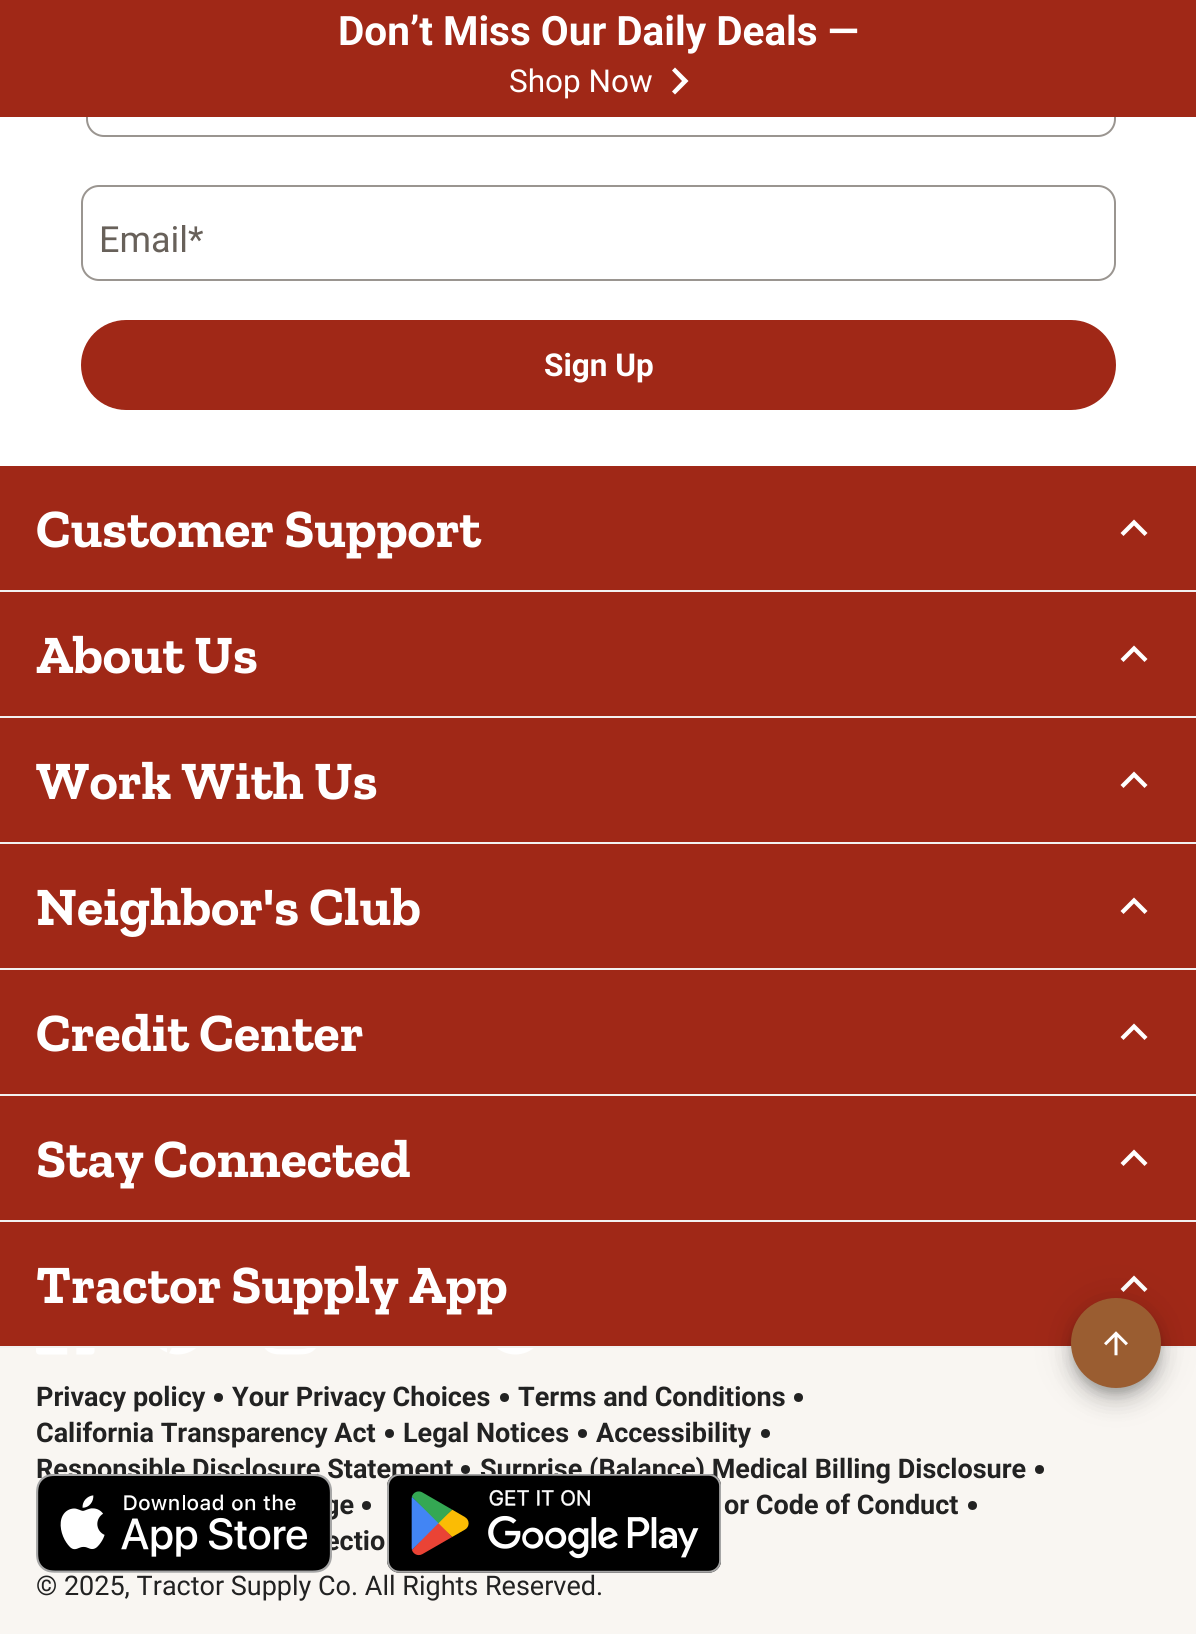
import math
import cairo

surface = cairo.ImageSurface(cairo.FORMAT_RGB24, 1196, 1634)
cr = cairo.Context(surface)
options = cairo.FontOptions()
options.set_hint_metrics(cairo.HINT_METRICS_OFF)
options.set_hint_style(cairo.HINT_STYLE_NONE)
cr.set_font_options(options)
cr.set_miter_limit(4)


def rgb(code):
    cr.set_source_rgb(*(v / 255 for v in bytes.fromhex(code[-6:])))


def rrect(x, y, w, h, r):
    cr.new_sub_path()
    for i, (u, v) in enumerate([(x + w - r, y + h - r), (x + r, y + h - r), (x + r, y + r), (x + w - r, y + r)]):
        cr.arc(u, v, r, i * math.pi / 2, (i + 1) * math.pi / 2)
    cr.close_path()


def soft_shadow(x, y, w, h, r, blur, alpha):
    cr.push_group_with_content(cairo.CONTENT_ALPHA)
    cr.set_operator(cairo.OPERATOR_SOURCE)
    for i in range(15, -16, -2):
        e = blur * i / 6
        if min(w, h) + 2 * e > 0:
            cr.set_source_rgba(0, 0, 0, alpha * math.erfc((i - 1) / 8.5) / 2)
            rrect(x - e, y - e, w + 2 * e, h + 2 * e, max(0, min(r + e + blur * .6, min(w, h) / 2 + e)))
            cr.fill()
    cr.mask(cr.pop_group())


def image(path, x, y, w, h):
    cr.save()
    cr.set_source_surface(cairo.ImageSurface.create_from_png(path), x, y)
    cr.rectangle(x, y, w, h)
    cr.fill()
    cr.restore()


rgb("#a02817")
cr.paint()
rgb("#ffffff")
cr.rectangle(0, 117, 1196, 349)
cr.fill()
rrect(87, 42, 1028, 94, 17)
rgb("#9a9590")
cr.stroke()
rgb("#a02817")
cr.rectangle(86, 41, 1030, 76)
cr.fill()
rgb("#ffffff")
cr.new_path()
cr.move_to(672, 91.5)
cr.line_to(682, 81)
cr.line_to(672, 70.5)
cr.line_to(675, 67.5)
cr.line_to(688.5, 81)
cr.line_to(675, 94.5)
cr.close_path()
cr.fill()
rrect(82, 186, 1033, 94, 17)
rgb("#9a9590")
cr.stroke()
rgb("#a02817")
rrect(81, 320, 1035, 90, 45)
cr.fill()
rgb("#ffffff")
cr.new_path()
cr.move_to(1123.5, 536)
cr.line_to(1134, 525.5)
cr.line_to(1144.5, 536)
cr.line_to(1147.5, 533)
cr.line_to(1134, 519.5)
cr.line_to(1120.5, 533)
cr.close_path()
cr.fill()
rgb("#f2f1f0")
cr.rectangle(0, 590, 1196, 2)
cr.fill()
rgb("#ffffff")
cr.new_path()
cr.move_to(1123.5, 662)
cr.line_to(1134, 651.5)
cr.line_to(1144.5, 662)
cr.line_to(1147.5, 659)
cr.line_to(1134, 645.5)
cr.line_to(1120.5, 659)
cr.close_path()
cr.fill()
rgb("#f2f1f0")
cr.rectangle(0, 716, 1196, 2)
cr.fill()
rgb("#ffffff")
cr.new_path()
cr.move_to(1123.5, 788)
cr.line_to(1134, 777.5)
cr.line_to(1144.5, 788)
cr.line_to(1147.5, 785)
cr.line_to(1134, 771.5)
cr.line_to(1120.5, 785)
cr.close_path()
cr.fill()
rgb("#f2f1f0")
cr.rectangle(0, 842, 1196, 2)
cr.fill()
rgb("#ffffff")
cr.new_path()
cr.move_to(1123.5, 914)
cr.line_to(1134, 903.5)
cr.line_to(1144.5, 914)
cr.line_to(1147.5, 911)
cr.line_to(1134, 897.5)
cr.line_to(1120.5, 911)
cr.close_path()
cr.fill()
rgb("#f2f1f0")
cr.rectangle(0, 968, 1196, 2)
cr.fill()
rgb("#ffffff")
cr.new_path()
cr.move_to(1123.5, 1040)
cr.line_to(1134, 1029.5)
cr.line_to(1144.5, 1040)
cr.line_to(1147.5, 1037)
cr.line_to(1134, 1023.5)
cr.line_to(1120.5, 1037)
cr.close_path()
cr.fill()
rgb("#f2f1f0")
cr.rectangle(0, 1094, 1196, 2)
cr.fill()
rgb("#ffffff")
cr.new_path()
cr.move_to(1123.5, 1166)
cr.line_to(1134, 1155.5)
cr.line_to(1144.5, 1166)
cr.line_to(1147.5, 1163)
cr.line_to(1134, 1149.5)
cr.line_to(1120.5, 1163)
cr.close_path()
cr.fill()
rgb("#f2f1f0")
cr.rectangle(0, 1220, 1196, 2)
cr.fill()
rgb("#f9f6f2")
cr.rectangle(0, 1348, 1196, 286)
cr.fill()
image("img/1.png", 36, 1348, 59, 7)
image("img/2.png", 159, 1348, 37, 7)
image("img/3.png", 264, 1348, 52, 7)
image("img/4.png", 497, 1348, 37, 7)
rgb("#ffffff")
cr.new_path()
cr.move_to(1123.5, 1292)
cr.line_to(1134, 1281.5)
cr.line_to(1144.5, 1292)
cr.line_to(1147.5, 1289)
cr.line_to(1134, 1275.5)
cr.line_to(1120.5, 1289)
cr.close_path()
cr.fill()
rgb("#f2f1f0")
cr.rectangle(0, 1346, 1196, 2)
cr.fill()
rgb("#222222")
cr.arc(218.5, 1397.5, 4.5, 0, 2 * math.pi)
cr.fill()
cr.arc(504.5, 1397.5, 4.5, 0, 2 * math.pi)
cr.fill()
cr.arc(798.5, 1397.5, 4.5, 0, 2 * math.pi)
cr.fill()
cr.arc(389.5, 1433.5, 4.5, 0, 2 * math.pi)
cr.fill()
cr.arc(582.5, 1433.5, 4.5, 0, 2 * math.pi)
cr.fill()
cr.arc(765.5, 1433.5, 4.5, 0, 2 * math.pi)
cr.fill()
cr.arc(465.5, 1469.5, 4.5, 0, 2 * math.pi)
cr.fill()
cr.arc(1039.5, 1469.5, 4.5, 0, 2 * math.pi)
cr.fill()
cr.arc(366.5, 1505.5, 4.5, 0, 2 * math.pi)
cr.fill()
cr.arc(972.5, 1505.5, 4.5, 0, 2 * math.pi)
cr.fill()
rgb("#000000")
soft_shadow(1071, 1301, 90, 90, 45, 20, 0.12)
soft_shadow(1071, 1312, 90, 90, 45, 11, 0.14)
soft_shadow(1073, 1307, 86, 86, 43, 5.5, 0.2)
rgb("#9a5d31")
cr.arc(1116, 1343, 45, 0, 2 * math.pi)
cr.fill()
image("img/7.png", 1104, 1331, 24, 25)
cr.select_font_face("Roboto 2", cairo.FONT_SLANT_NORMAL, cairo.FONT_WEIGHT_BOLD)
cr.set_font_size(40.5)
rgb("#ffffff")
cr.move_to(338, 45)
cr.show_text("Don’t Miss Our Daily Deals —")
cr.select_font_face("Roboto 2")
cr.set_font_size(31.5)
cr.move_to(509, 92)
cr.show_text("Shop Now")
cr.select_font_face("Roboto")
cr.set_font_size(36)
rgb("#68615a")
cr.move_to(99, 252)
cr.show_text("Email*")
cr.select_font_face("Roboto", cairo.FONT_SLANT_NORMAL, cairo.FONT_WEIGHT_BOLD)
cr.set_font_size(31.5)
rgb("#ffffff")
cr.move_to(544, 376)
cr.show_text("Sign Up")
cr.select_font_face("Zilla Slab", cairo.FONT_SLANT_NORMAL, cairo.FONT_WEIGHT_BOLD)
cr.set_font_size(54)
for x, y, s in [
    (36, 547, "Customer Support"),
    (36, 673, "About Us"),
    (36, 799, "Work With Us"),
    (36, 925, "Neighbor's Club"),
    (36, 1051, "Credit Center"),
    (36, 1177, "Stay Connected"),
    (36, 1303, "Tractor Supply App"),
]:
    cr.move_to(x, y)
    cr.show_text(s)
cr.select_font_face("Roboto", cairo.FONT_SLANT_NORMAL, cairo.FONT_WEIGHT_BOLD)
cr.set_font_size(27)
rgb("#222222")
for x, y, s in [
    (36, 1406, "Privacy policy"),
    (232, 1406, "Your Privacy Choices"),
    (518, 1406, "Terms and Conditions"),
    (36, 1442, "California Transparency Act"),
    (403, 1442, "Legal Notices"),
    (596, 1442, "Accessibility"),
    (36, 1478, "Responsible Disclosure Statement"),
    (480, 1478, "Surprise (Balance) Medical Billing Disclosure"),
]:
    cr.move_to(x, y)
    cr.show_text(s)
image("img/6.png", 387, 1474, 334, 99)
for x, y, s in [
    (324, 1514, "ge"),
    (724, 1514, "or Code of Conduct"),
    (325, 1550, "ectio"),
]:
    cr.move_to(x, y)
    cr.show_text(s)
image("img/5.png", 36, 1474, 296, 99)
cr.select_font_face("Roboto")
cr.move_to(36, 1595)
cr.show_text("© 2025, Tractor Supply Co. All Rights Reserved.")
surface.write_to_png("page.png")
